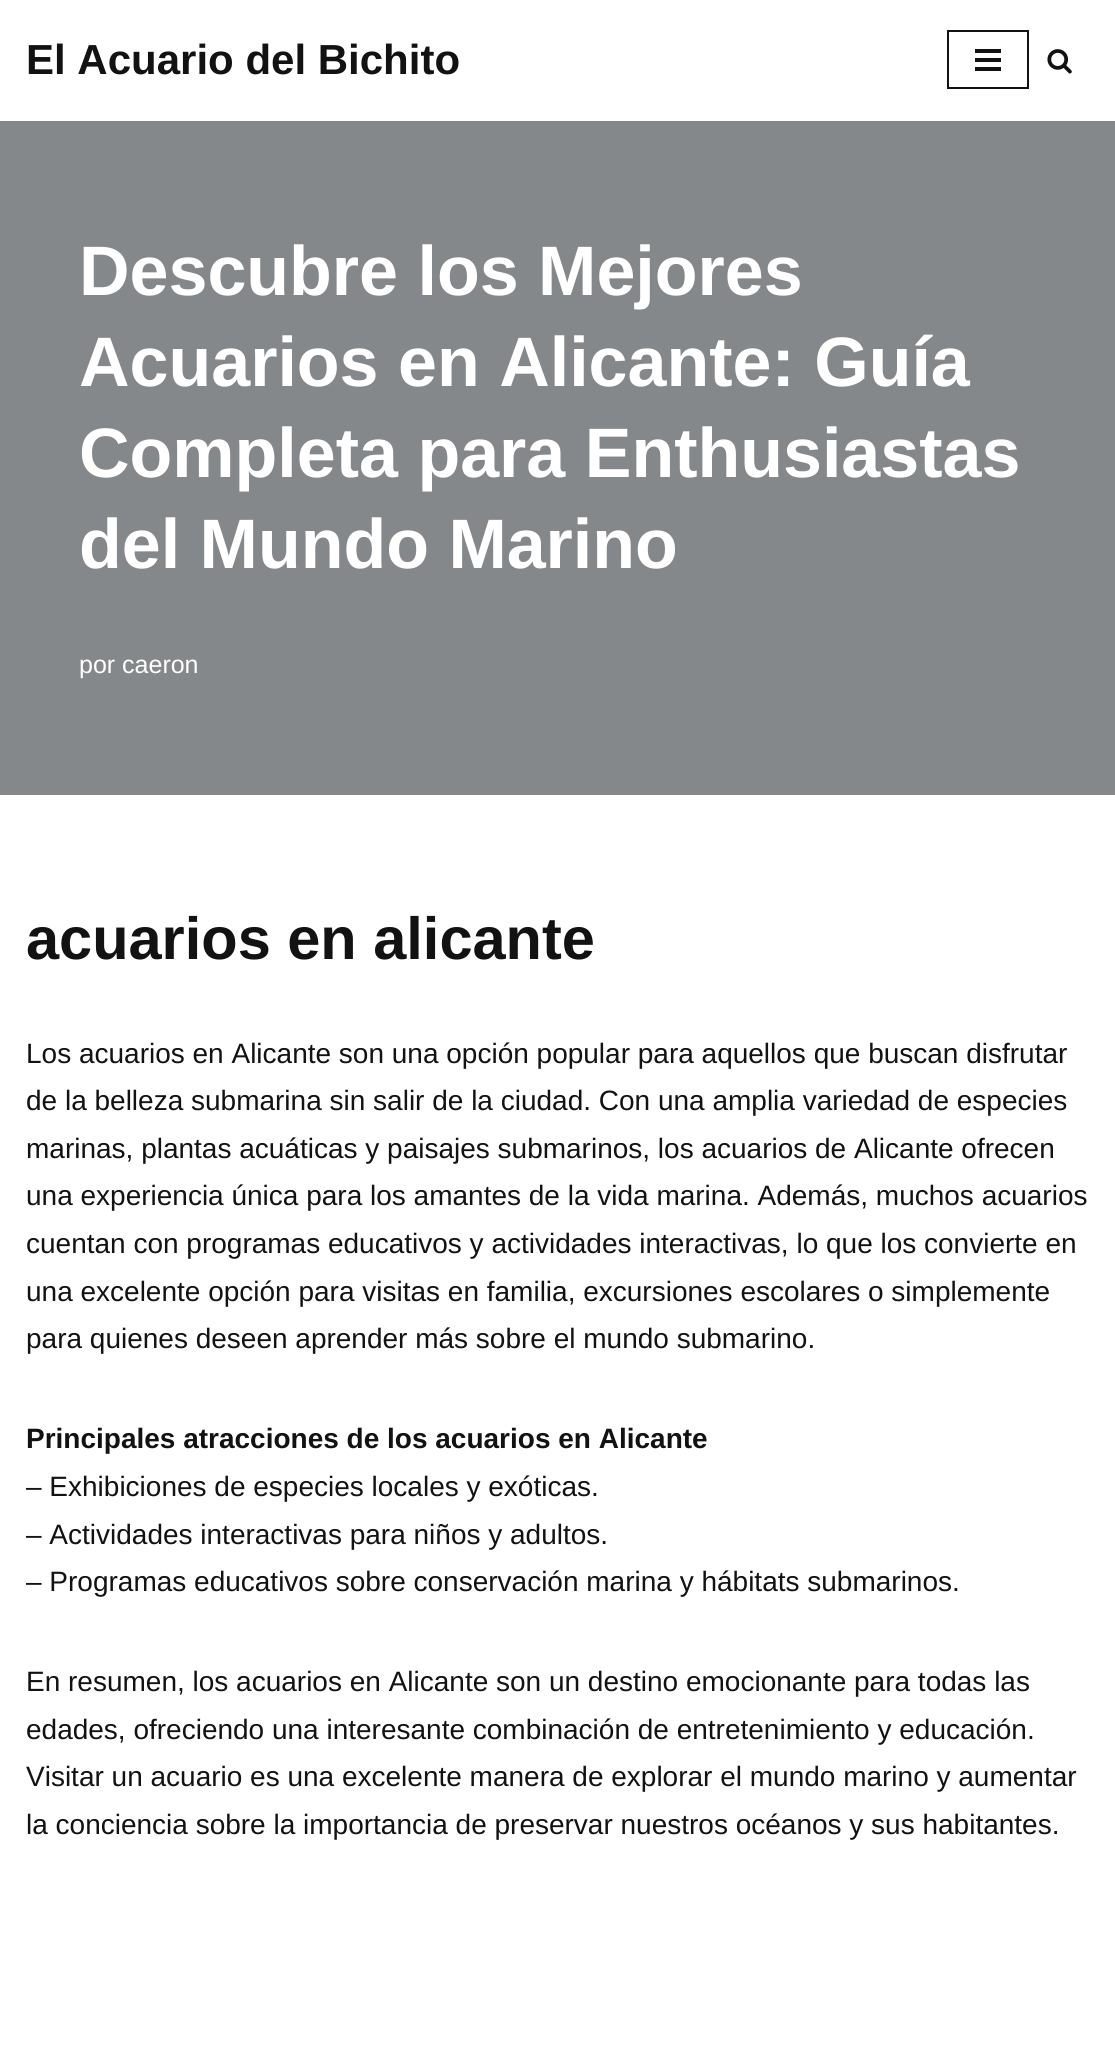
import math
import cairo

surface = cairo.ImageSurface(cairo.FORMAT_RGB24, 1115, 2059)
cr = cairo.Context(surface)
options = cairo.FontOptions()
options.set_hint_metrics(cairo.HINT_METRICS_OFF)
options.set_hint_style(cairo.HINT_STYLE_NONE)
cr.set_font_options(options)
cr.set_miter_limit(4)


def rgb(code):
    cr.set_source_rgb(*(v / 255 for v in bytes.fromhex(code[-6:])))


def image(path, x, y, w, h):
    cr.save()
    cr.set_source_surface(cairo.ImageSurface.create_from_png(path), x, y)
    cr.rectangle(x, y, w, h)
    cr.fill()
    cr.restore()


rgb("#ffffff")
cr.paint()
cr.rectangle(948, 31, 80, 57)
rgb("#121212")
cr.stroke()
for x, y, w, h, color in [
    (975, 49, 26, 4, "#121212"),
    (975, 58, 26, 4, "#121212"),
    (975, 67, 26, 4, "#121212"),
]:
    rgb(color)
    cr.rectangle(x, y, w, h)
    cr.fill()
image("img/1.png", 1047, 49, 25, 25)
cr.set_source_rgba(0.051, 0.075, 0.09, 0.5)
cr.rectangle(0, 121, 1115, 674)
cr.fill()
cr.select_font_face("Liberation Sans", cairo.FONT_SLANT_NORMAL, cairo.FONT_WEIGHT_BOLD)
cr.set_font_size(42)
rgb("#121212")
cr.move_to(26, 74)
cr.show_text("El Acuario del Bichito")
cr.set_font_size(70)
rgb("#ffffff")
for x, y, s in [
    (79, 295, "Descubre los Mejores"),
    (79, 386, "Acuarios en Alicante: Guía"),
    (79, 477, "Completa para Enthusiastas"),
    (79, 568, "del Mundo Marino"),
]:
    cr.move_to(x, y)
    cr.show_text(s)
cr.select_font_face("Liberation Sans")
cr.set_font_size(25)
cr.move_to(79, 673)
cr.show_text("por caeron")
cr.select_font_face("Liberation Sans", cairo.FONT_SLANT_NORMAL, cairo.FONT_WEIGHT_BOLD)
cr.set_font_size(59.5)
rgb("#121212")
cr.move_to(26, 959)
cr.show_text("acuarios en alicante")
cr.select_font_face("Liberation Sans")
cr.set_font_size(28)
for x, y, s in [
    (26, 1063, "Los acuarios en Alicante son una opción popular para aquellos que buscan disfrutar"),
    (26, 1110, "de la belleza submarina sin salir de la ciudad. Con una amplia variedad de especies"),
    (26, 1158, "marinas, plantas acuáticas y paisajes submarinos, los acuarios de Alicante ofrecen"),
    (26, 1205, "una experiencia única para los amantes de la vida marina. Además, muchos acuarios"),
    (26, 1253, "cuentan con programas educativos y actividades interactivas, lo que los convierte en"),
    (26, 1301, "una excelente opción para visitas en familia, excursiones escolares o simplemente"),
    (26, 1348, "para quienes deseen aprender más sobre el mundo submarino."),
]:
    cr.move_to(x, y)
    cr.show_text(s)
cr.select_font_face("Liberation Sans", cairo.FONT_SLANT_NORMAL, cairo.FONT_WEIGHT_BOLD)
cr.move_to(26, 1448)
cr.show_text("Principales atracciones de los acuarios en Alicante")
cr.select_font_face("Liberation Sans")
for x, y, s in [
    (26, 1496, "– Exhibiciones de especies locales y exóticas."),
    (26, 1544, "– Actividades interactivas para niños y adultos."),
    (26, 1591, "– Programas educativos sobre conservación marina y hábitats submarinos."),
    (26, 1691, "En resumen, los acuarios en Alicante son un destino emocionante para todas las"),
    (26, 1739, "edades, ofreciendo una interesante combinación de entretenimiento y educación."),
    (26, 1786, "Visitar un acuario es una excelente manera de explorar el mundo marino y aumentar"),
    (26, 1834, "la conciencia sobre la importancia de preservar nuestros océanos y sus habitantes."),
]:
    cr.move_to(x, y)
    cr.show_text(s)
surface.write_to_png("page.png")
